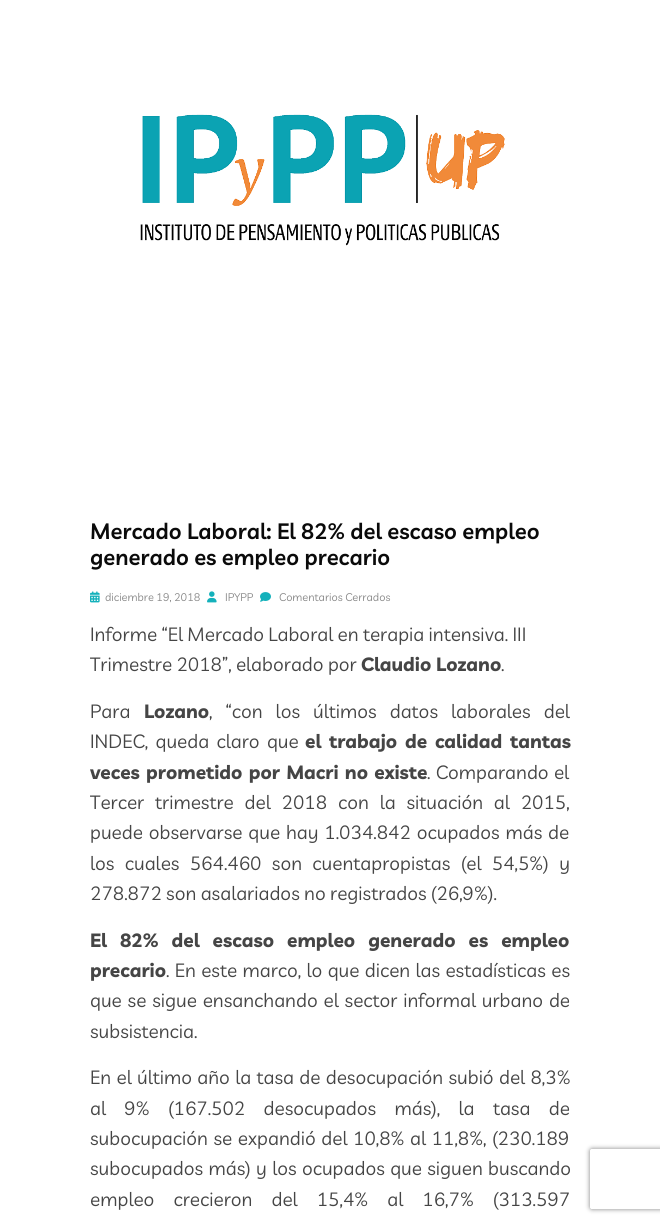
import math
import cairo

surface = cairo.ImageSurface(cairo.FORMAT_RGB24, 660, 1223)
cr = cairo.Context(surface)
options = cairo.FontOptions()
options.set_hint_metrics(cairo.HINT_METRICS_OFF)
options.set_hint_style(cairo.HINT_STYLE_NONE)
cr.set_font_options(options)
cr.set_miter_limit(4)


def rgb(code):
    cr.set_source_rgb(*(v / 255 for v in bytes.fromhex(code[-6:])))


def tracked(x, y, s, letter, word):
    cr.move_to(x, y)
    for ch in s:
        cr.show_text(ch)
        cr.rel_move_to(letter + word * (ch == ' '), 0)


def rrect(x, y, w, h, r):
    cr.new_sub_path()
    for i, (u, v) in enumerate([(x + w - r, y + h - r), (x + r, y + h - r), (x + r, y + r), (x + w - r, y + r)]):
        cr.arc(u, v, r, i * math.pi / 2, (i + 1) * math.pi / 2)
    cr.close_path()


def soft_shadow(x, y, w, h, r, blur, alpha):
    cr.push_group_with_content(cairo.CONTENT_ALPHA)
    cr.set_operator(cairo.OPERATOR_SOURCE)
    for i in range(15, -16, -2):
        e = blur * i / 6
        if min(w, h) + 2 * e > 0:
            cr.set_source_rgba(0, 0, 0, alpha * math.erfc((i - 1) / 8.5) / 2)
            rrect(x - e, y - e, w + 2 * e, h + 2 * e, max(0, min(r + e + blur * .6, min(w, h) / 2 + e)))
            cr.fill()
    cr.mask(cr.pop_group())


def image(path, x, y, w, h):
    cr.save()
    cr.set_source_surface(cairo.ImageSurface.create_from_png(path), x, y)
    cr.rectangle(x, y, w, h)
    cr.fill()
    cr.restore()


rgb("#ffffff")
cr.paint()
image("img/1.png", 140, 114, 365, 132)
image("img/2.png", 90, 591, 10, 12)
image("img/3.png", 207, 591, 10, 12)
image("img/4.png", 260, 592, 11, 10)
cr.save()
cr.set_fill_rule(cairo.FILL_RULE_EVEN_ODD)
cr.new_path()
cr.move_to(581, 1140)
cr.line_to(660, 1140)
cr.line_to(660, 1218)
cr.line_to(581, 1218)
cr.close_path()
cr.move_to(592, 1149)
cr.line_to(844, 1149)
cr.curve_to(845, 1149, 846, 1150, 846, 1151)
cr.line_to(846, 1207)
cr.curve_to(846, 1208, 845, 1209, 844, 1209)
cr.line_to(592, 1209)
cr.curve_to(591, 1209, 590, 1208, 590, 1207)
cr.line_to(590, 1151)
cr.curve_to(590, 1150, 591, 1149, 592, 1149)
cr.close_path()
cr.clip()
rgb("#808080")
soft_shadow(590, 1149, 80, 60, 2, 2.5, 1)
cr.restore()
cr.select_font_face("Livvic SemiBold")
cr.set_font_size(22)
rgb("#0a0a0a")
cr.move_to(90, 539)
cr.show_text("Mercado Laboral: El 82% del escaso empleo")
cr.move_to(90, 565)
cr.show_text("generado es empleo precario")
cr.select_font_face("Livvic")
cr.set_font_size(11)
rgb("#888888")
for x, y, s in [
    (105, 601, "diciembre 19, 2018"),
    (225, 601, "IPYPP"),
    (279, 601, "Comentarios Cerrados"),
]:
    cr.move_to(x, y)
    cr.show_text(s)
cr.set_font_size(19)
rgb("#454545")
cr.move_to(90, 641)
cr.show_text("Informe “El Mercado Laboral en terapia intensiva. III")
cr.move_to(90, 671)
cr.show_text("Trimestre 2018”, elaborado por")
cr.select_font_face("Livvic", cairo.FONT_SLANT_NORMAL, cairo.FONT_WEIGHT_BOLD)
cr.move_to(361, 671)
cr.show_text("Claudio Lozano")
cr.select_font_face("Livvic")
cr.move_to(501, 671)
cr.show_text(".")
cr.move_to(90, 718)
cr.show_text("Para")
cr.select_font_face("Livvic", cairo.FONT_SLANT_NORMAL, cairo.FONT_WEIGHT_BOLD)
cr.move_to(144, 718)
cr.show_text("Lozano")
cr.select_font_face("Livvic")
tracked(209, 718, ", “con los últimos datos laborales del", 0, 8.75)
tracked(90, 748, "INDEC, queda claro que", 0, 3)
cr.select_font_face("Livvic", cairo.FONT_SLANT_NORMAL, cairo.FONT_WEIGHT_BOLD)
tracked(305, 748, "el trabajo de calidad tantas", 0, 3)
tracked(90, 779, "veces prometido por Macri no existe", 0, 1.5)
cr.select_font_face("Livvic")
tracked(427, 779, ". Comparando el", 0, 1)
tracked(90, 809, "Tercer trimestre del 2018 con la situación al 2015,", 0, 6.5)
tracked(90, 839, "puede observarse que hay 1.034.842 ocupados más de", 0, 1.5)
tracked(90, 870, "los cuales 564.460 son cuentapropistas (el 54,5%) y", 0, 6)
cr.move_to(90, 900)
cr.show_text("278.872 son asalariados no registrados (26,9%).")
cr.select_font_face("Livvic", cairo.FONT_SLANT_NORMAL, cairo.FONT_WEIGHT_BOLD)
tracked(90, 947, "El 82% del escaso empleo generado es empleo", 0, 8.25)
cr.move_to(90, 977)
cr.show_text("precario")
cr.select_font_face("Livvic")
tracked(166, 977, ". En este marco, lo que dicen las estadísticas es", 0, 1)
tracked(90, 1007, "que se sigue ensanchando el sector informal urbano de", 0, 1.5)
cr.move_to(90, 1038)
cr.show_text("subsistencia.")
tracked(90, 1084, "En el último año la tasa de desocupación subió del 8,3%", 0, 1)
tracked(90, 1115, "al 9% (167.502 desocupados más), la tasa de", 0, 14)
tracked(90, 1145, "subocupación se expandió del 10,8% al 11,8%, (230.189", 0, 1.25)
tracked(90, 1175, "subocupados más) y los ocupados que siguen buscando", 0, 1)
tracked(90, 1206, "empleo crecieron del 15,4% al 16,7% (313.597", 0, 14.75)
surface.write_to_png("page.png")
